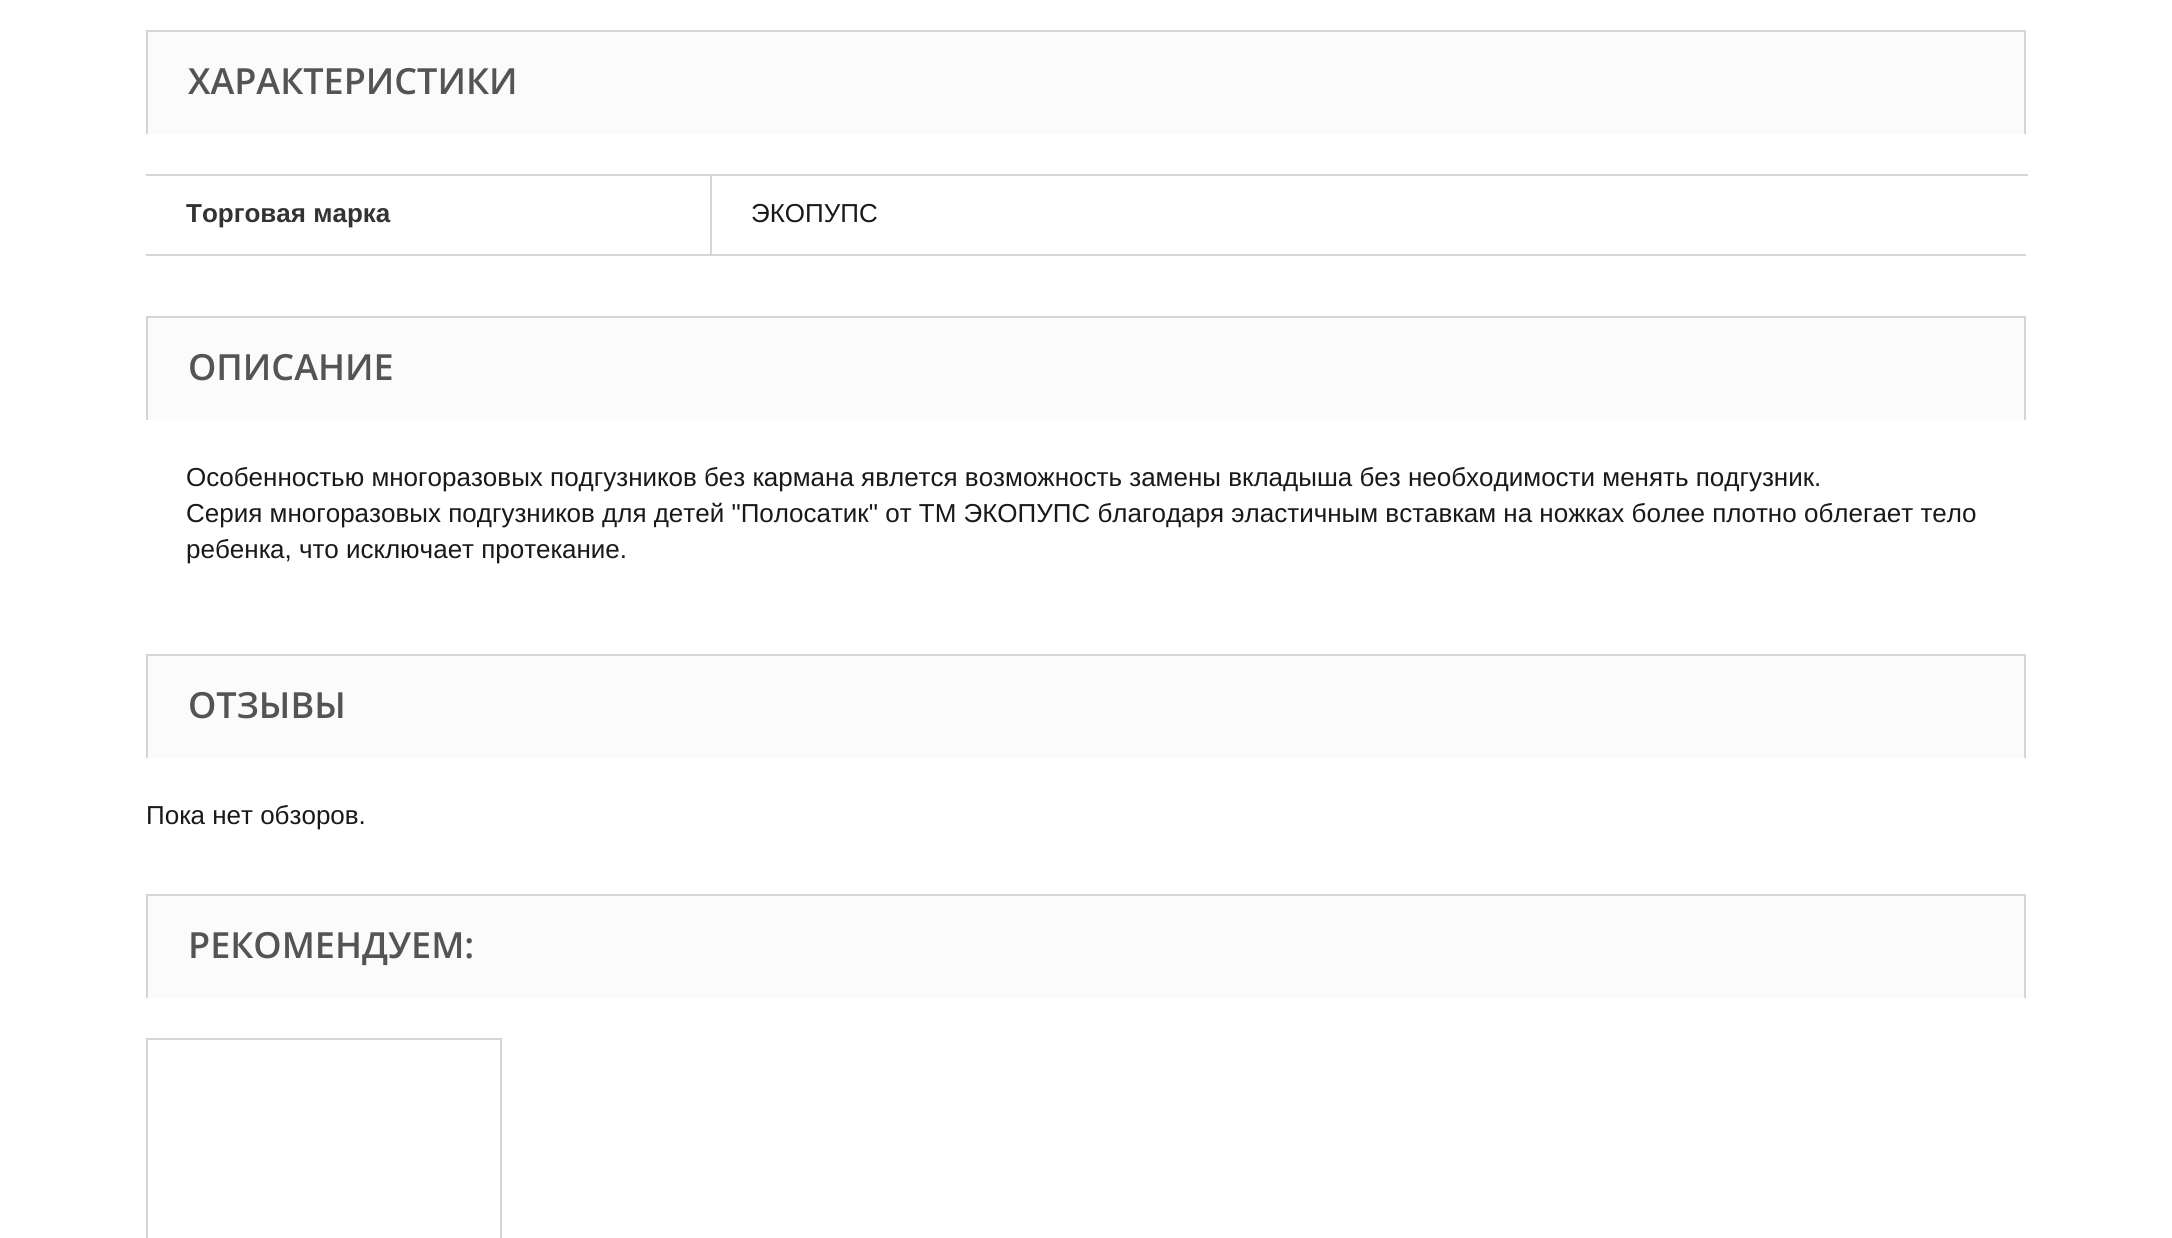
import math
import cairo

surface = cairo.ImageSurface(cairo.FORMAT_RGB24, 2172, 1238)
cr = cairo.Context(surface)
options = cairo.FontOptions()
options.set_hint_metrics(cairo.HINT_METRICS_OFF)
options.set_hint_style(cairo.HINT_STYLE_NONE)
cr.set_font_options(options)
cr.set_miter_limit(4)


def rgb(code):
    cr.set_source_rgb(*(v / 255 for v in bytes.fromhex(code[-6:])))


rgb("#ffffff")
cr.paint()
for x, y, w, h, color in [
    (148, 32, 1876, 102, "#fbfbfb"),
    (146, 30, 1880, 2, "#d6d4d4"),
    (2024, 30, 2, 104, "#d6d4d4"),
    (146, 30, 2, 104, "#d6d4d4"),
    (146, 254, 1880, 2, "#d6d4d4"),
    (146, 174, 1882, 2, "#d6d4d4"),
    (710, 174, 2, 82, "#d6d4d4"),
    (148, 318, 1876, 102, "#fbfbfb"),
    (146, 316, 1880, 2, "#d6d4d4"),
    (2024, 316, 2, 104, "#d6d4d4"),
    (146, 316, 2, 104, "#d6d4d4"),
    (148, 656, 1876, 102, "#fbfbfb"),
    (146, 654, 1880, 2, "#d6d4d4"),
    (2024, 654, 2, 104, "#d6d4d4"),
    (146, 654, 2, 104, "#d6d4d4"),
    (148, 896, 1876, 102, "#fbfbfb"),
    (146, 894, 1880, 2, "#d6d4d4"),
    (2024, 894, 2, 104, "#d6d4d4"),
    (146, 894, 2, 104, "#d6d4d4"),
]:
    rgb(color)
    cr.rectangle(x, y, w, h)
    cr.fill()
cr.rectangle(147, 1039, 354, 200)
cr.stroke()
cr.select_font_face("Open Sans SemiBold")
cr.set_font_size(36)
rgb("#555454")
cr.move_to(188, 94)
cr.show_text("ХАРАКТЕРИСТИКИ")
cr.select_font_face("Liberation Sans", cairo.FONT_SLANT_NORMAL, cairo.FONT_WEIGHT_BOLD)
cr.set_font_size(26)
rgb("#333333")
cr.move_to(186, 222)
cr.show_text("Торговая марка")
cr.select_font_face("Liberation Sans")
rgb("#191919")
cr.move_to(751, 222)
cr.show_text("ЭКОПУПС")
cr.select_font_face("Open Sans SemiBold")
cr.set_font_size(36)
rgb("#555454")
cr.move_to(188, 380)
cr.show_text("ОПИСАНИЕ")
cr.select_font_face("Liberation Sans")
cr.set_font_size(26)
rgb("#191919")
for x, y, s in [
    (186, 486, "Особенностью многоразовых подгузников без кармана явлется возможность замены вкладыша без необходимости менять подгузник."),
    (186, 522, "Серия многоразовых подгузников для детей \"Полосатик\" от ТМ ЭКОПУПС благодаря эластичным вставкам на ножках более плотно облегает тело"),
    (186, 558, "ребенка, что исключает протекание."),
]:
    cr.move_to(x, y)
    cr.show_text(s)
cr.select_font_face("Open Sans SemiBold")
cr.set_font_size(36)
rgb("#555454")
cr.move_to(188, 718)
cr.show_text("ОТЗЫВЫ")
cr.select_font_face("Liberation Sans")
cr.set_font_size(26)
rgb("#191919")
cr.move_to(146, 824)
cr.show_text("Пока нет обзоров.")
cr.select_font_face("Open Sans SemiBold")
cr.set_font_size(36)
rgb("#555454")
cr.move_to(188, 958)
cr.show_text("РЕКОМЕНДУЕМ:")
surface.write_to_png("page.png")
